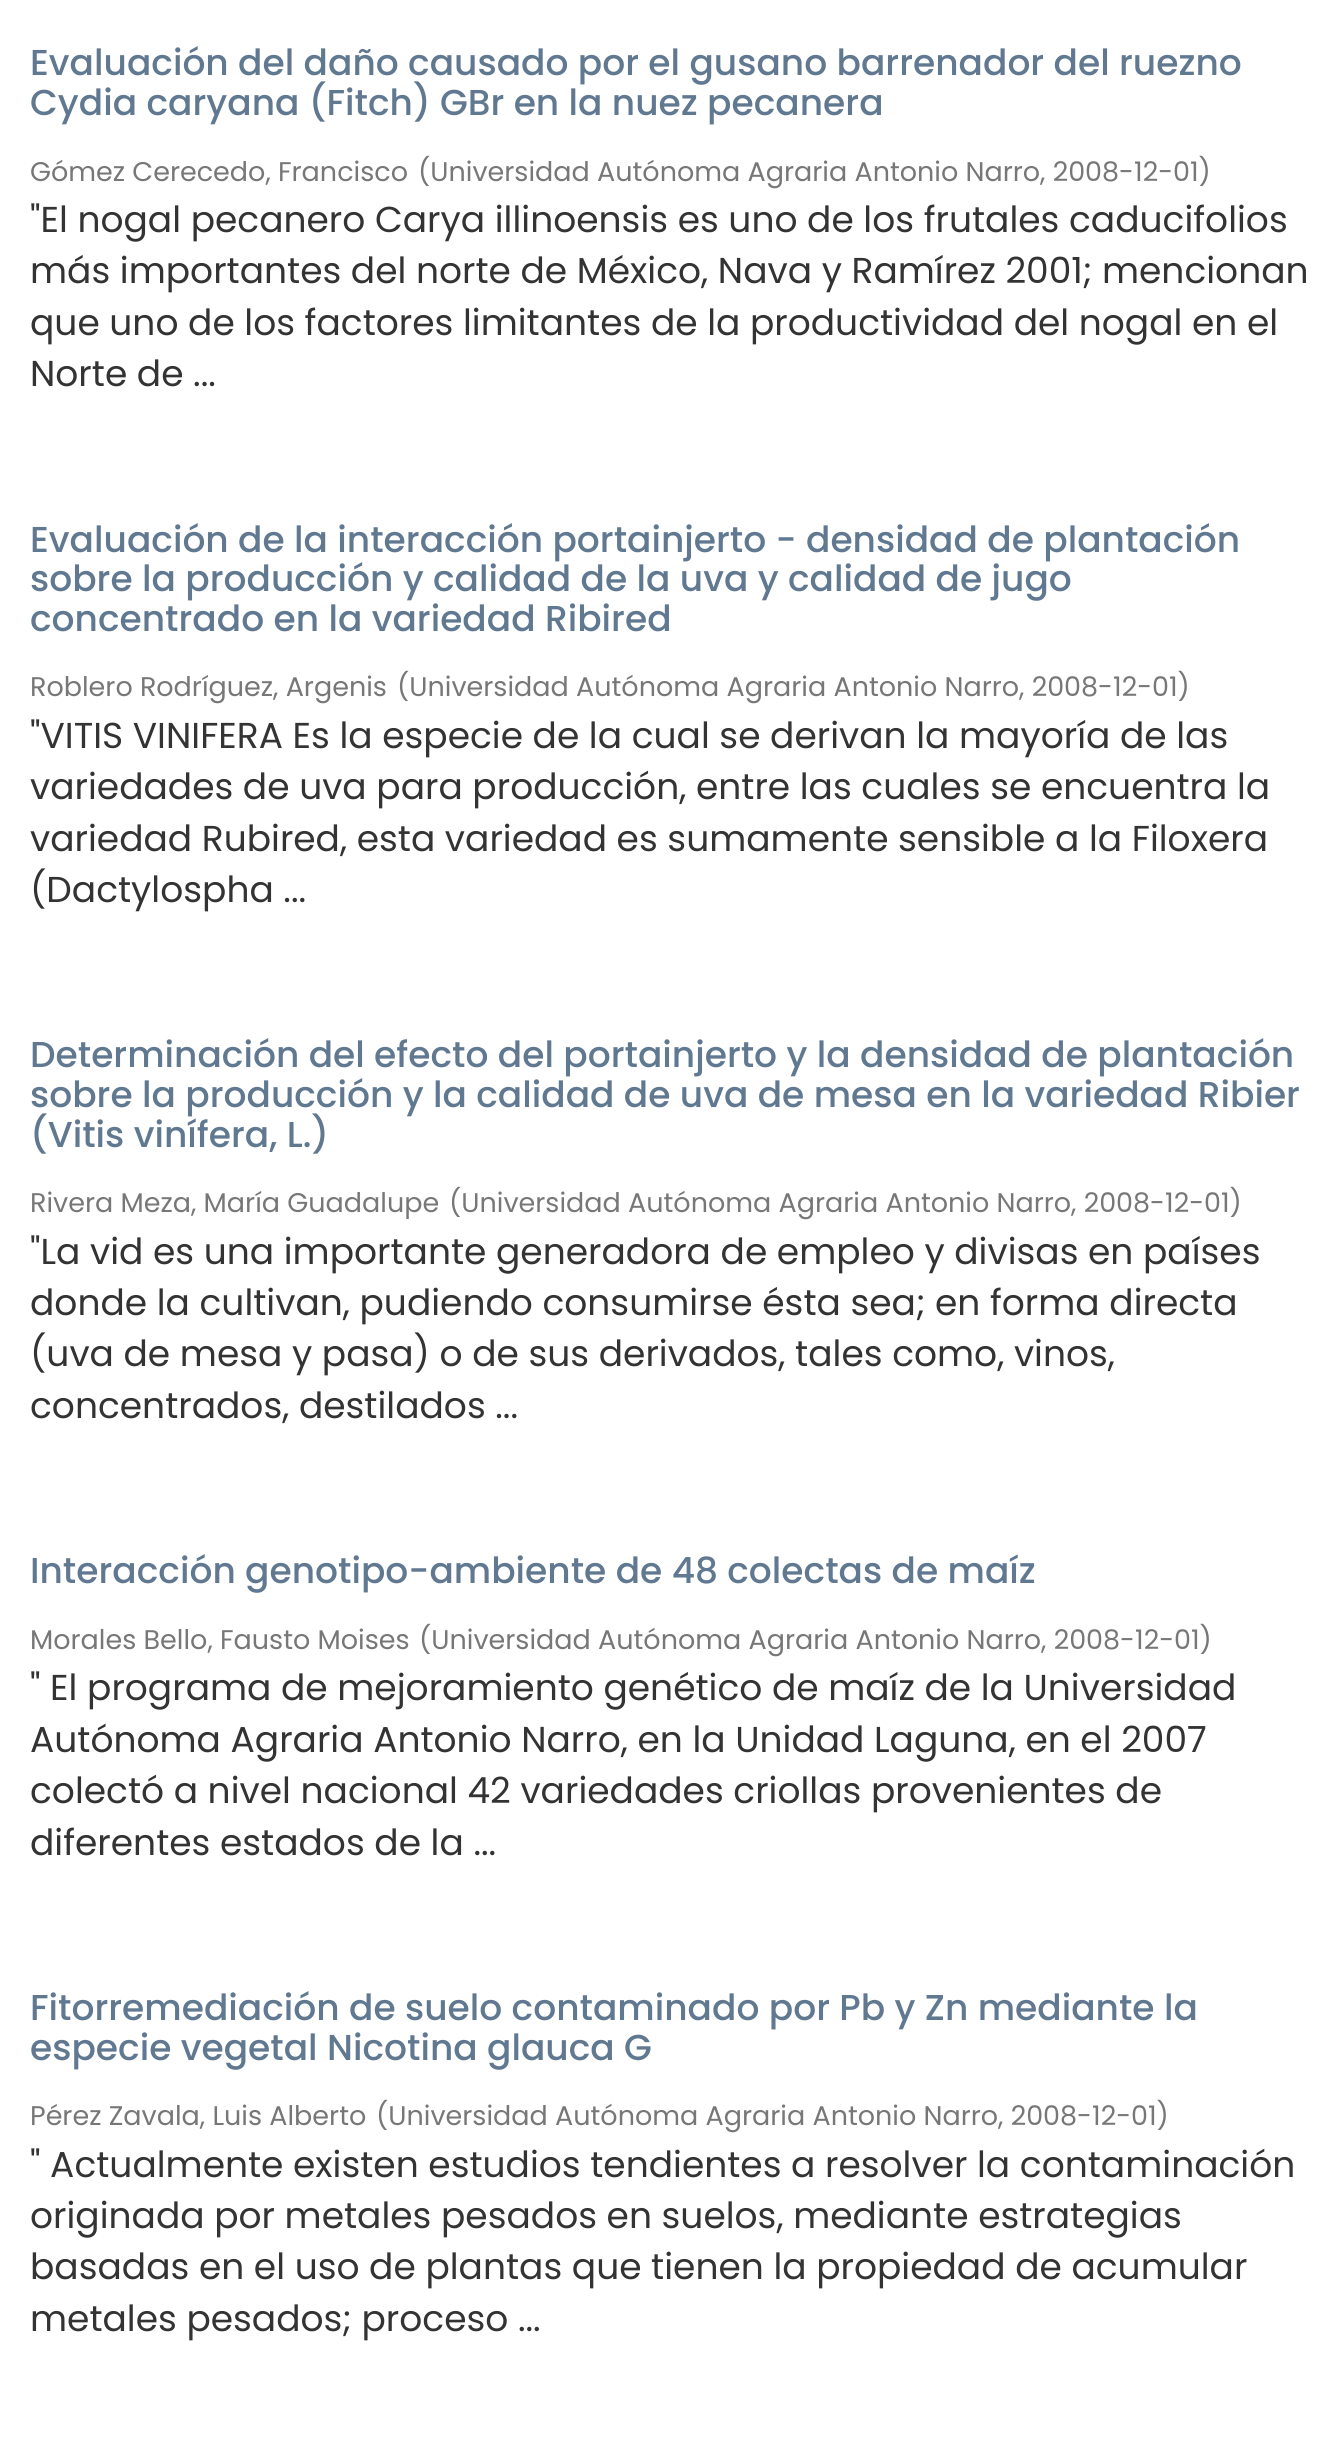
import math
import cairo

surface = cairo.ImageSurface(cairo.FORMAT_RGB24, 1343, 2439)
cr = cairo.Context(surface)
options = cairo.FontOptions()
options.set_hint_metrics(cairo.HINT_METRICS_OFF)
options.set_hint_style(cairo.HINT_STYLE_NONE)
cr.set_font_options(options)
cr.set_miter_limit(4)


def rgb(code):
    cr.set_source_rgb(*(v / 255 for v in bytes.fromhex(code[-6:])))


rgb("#ffffff")
cr.paint()
cr.select_font_face("Poppins Medium")
cr.set_font_size(36)
rgb("#607890")
cr.move_to(30, 75)
cr.show_text("Evaluación del daño causado por el gusano barrenador del ruezno")
cr.move_to(30, 115)
cr.show_text("Cydia caryana (Fitch) GBr en la nuez pecanera")
cr.select_font_face("Poppins")
cr.set_font_size(27)
rgb("#777777")
cr.move_to(30, 181)
cr.show_text("Gómez Cerecedo, Francisco")
cr.move_to(418, 181)
cr.show_text("(Universidad Autónoma Agraria Antonio Narro, 2008-12-01)")
cr.set_font_size(36)
rgb("#333333")
for x, y, s in [
    (30, 232, "\"El nogal pecanero Carya illinoensis es uno de los frutales caducifolios"),
    (30, 283, "más importantes del norte de México, Nava y Ramírez 2001; mencionan"),
    (30, 335, "que uno de los factores limitantes de la productividad del nogal en el"),
    (30, 386, "Norte de ..."),
]:
    cr.move_to(x, y)
    cr.show_text(s)
cr.select_font_face("Poppins Medium")
rgb("#607890")
for x, y, s in [
    (30, 552, "Evaluación de la interacción portainjerto - densidad de plantación"),
    (30, 591, "sobre la producción y calidad de la uva y calidad de jugo"),
    (30, 631, "concentrado en la variedad Ribired"),
]:
    cr.move_to(x, y)
    cr.show_text(s)
cr.select_font_face("Poppins")
cr.set_font_size(27)
rgb("#777777")
cr.move_to(30, 696)
cr.show_text("Roblero Rodríguez, Argenis")
cr.move_to(397, 696)
cr.show_text("(Universidad Autónoma Agraria Antonio Narro, 2008-12-01)")
cr.set_font_size(36)
rgb("#333333")
for x, y, s in [
    (30, 748, "\"VITIS VINIFERA Es la especie de la cual se derivan la mayoría de las"),
    (30, 799, "variedades de uva para producción, entre las cuales se encuentra la"),
    (30, 851, "variedad Rubired, esta variedad es sumamente sensible a la Filoxera"),
    (30, 902, "(Dactylospha ..."),
]:
    cr.move_to(x, y)
    cr.show_text(s)
cr.select_font_face("Poppins Medium")
rgb("#607890")
for x, y, s in [
    (30, 1067, "Determinación del efecto del portainjerto y la densidad de plantación"),
    (30, 1107, "sobre la producción y la calidad de uva de mesa en la variedad Ribier"),
    (30, 1147, "(Vitis vinífera, L.)"),
]:
    cr.move_to(x, y)
    cr.show_text(s)
cr.select_font_face("Poppins")
cr.set_font_size(27)
rgb("#777777")
cr.move_to(30, 1212)
cr.show_text("Rivera Meza, María Guadalupe")
cr.move_to(449, 1212)
cr.show_text("(Universidad Autónoma Agraria Antonio Narro, 2008-12-01)")
cr.set_font_size(36)
rgb("#333333")
for x, y, s in [
    (30, 1264, "\"La vid es una importante generadora de empleo y divisas en países"),
    (30, 1315, "donde la cultivan, pudiendo consumirse ésta sea; en forma directa"),
    (30, 1366, "(uva de mesa y pasa) o de sus derivados, tales como, vinos,"),
    (30, 1418, "concentrados, destilados ..."),
]:
    cr.move_to(x, y)
    cr.show_text(s)
cr.select_font_face("Poppins Medium")
rgb("#607890")
cr.move_to(30, 1583)
cr.show_text("Interacción genotipo-ambiente de 48 colectas de maíz")
cr.select_font_face("Poppins")
cr.set_font_size(27)
rgb("#777777")
cr.move_to(30, 1649)
cr.show_text("Morales Bello, Fausto Moises")
cr.move_to(419, 1649)
cr.show_text("(Universidad Autónoma Agraria Antonio Narro, 2008-12-01)")
cr.set_font_size(36)
rgb("#333333")
for x, y, s in [
    (30, 1700, "\" El programa de mejoramiento genético de maíz de la Universidad"),
    (30, 1752, "Autónoma Agraria Antonio Narro, en la Unidad Laguna, en el 2007"),
    (30, 1803, "colectó a nivel nacional 42 variedades criollas provenientes de"),
    (30, 1855, "diferentes estados de la ..."),
]:
    cr.move_to(x, y)
    cr.show_text(s)
cr.select_font_face("Poppins Medium")
rgb("#607890")
cr.move_to(30, 2020)
cr.show_text("Fitorremediación de suelo contaminado por Pb y Zn mediante la")
cr.move_to(30, 2060)
cr.show_text("especie vegetal Nicotina glauca G")
cr.select_font_face("Poppins")
cr.set_font_size(27)
rgb("#777777")
cr.move_to(30, 2125)
cr.show_text("Pérez Zavala, Luis Alberto")
cr.move_to(376, 2125)
cr.show_text("(Universidad Autónoma Agraria Antonio Narro, 2008-12-01)")
cr.set_font_size(36)
rgb("#333333")
for x, y, s in [
    (30, 2177, "\" Actualmente existen estudios tendientes a resolver la contaminación"),
    (30, 2228, "originada por metales pesados en suelos, mediante estrategias"),
    (30, 2279, "basadas en el uso de plantas que tienen la propiedad de acumular"),
    (30, 2331, "metales pesados; proceso ..."),
]:
    cr.move_to(x, y)
    cr.show_text(s)
surface.write_to_png("page.png")
